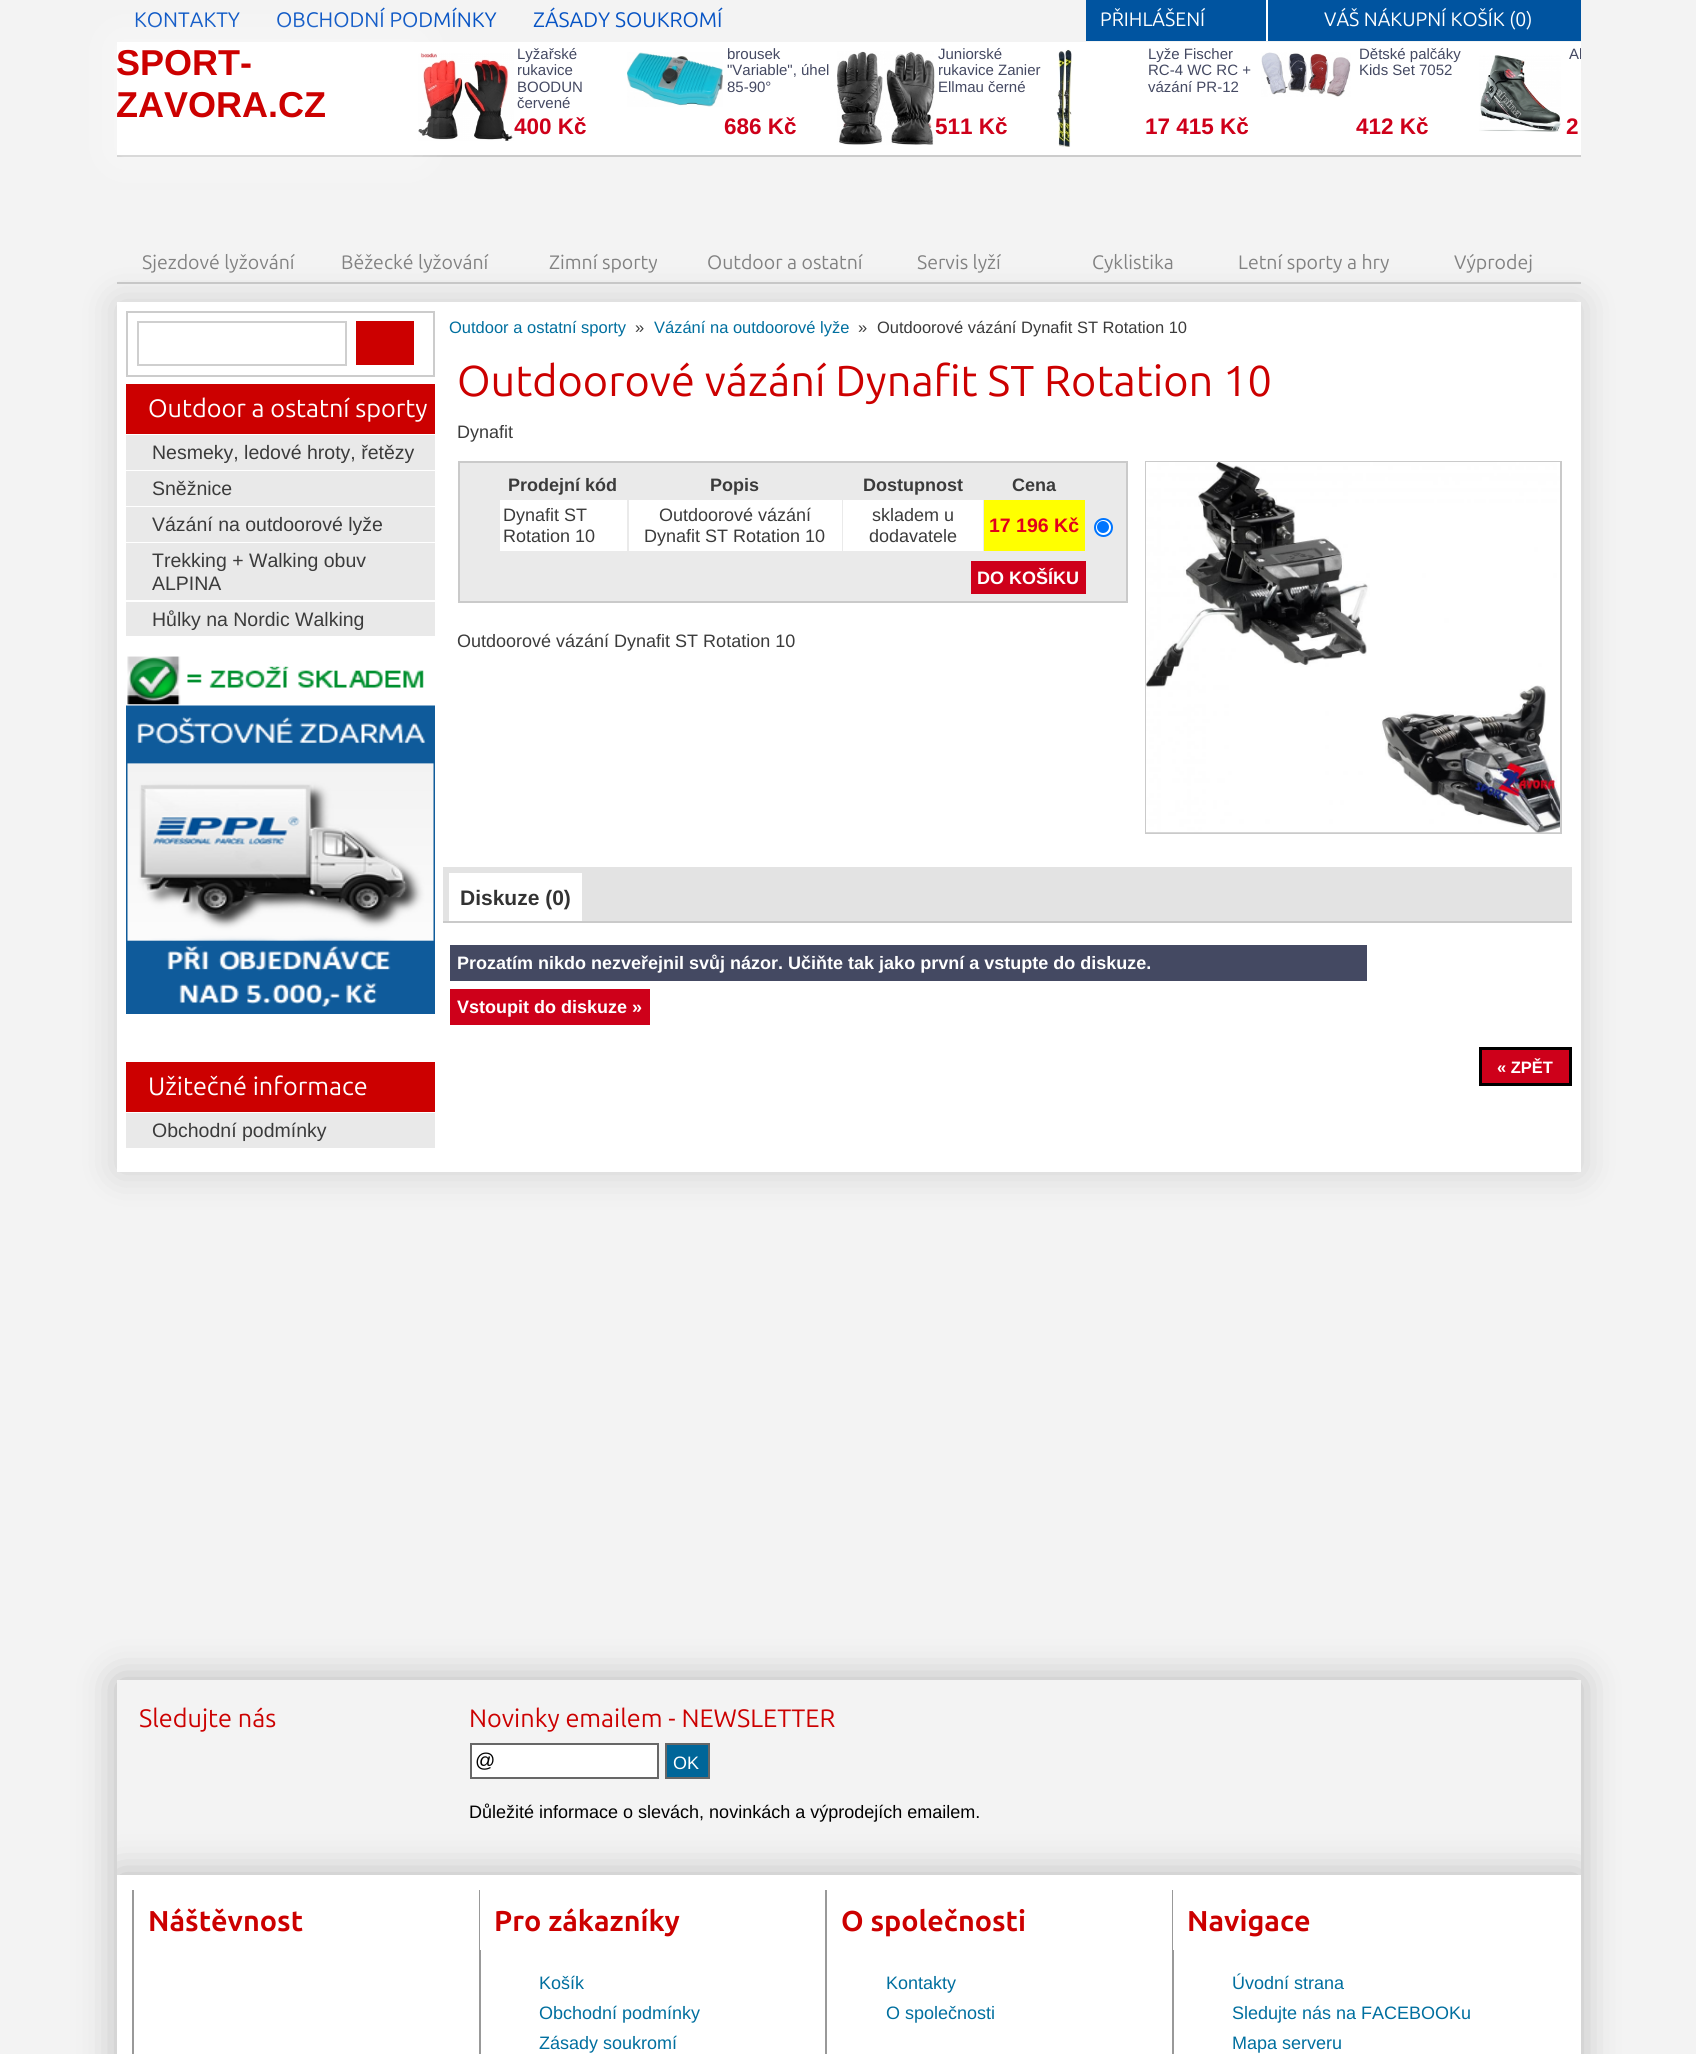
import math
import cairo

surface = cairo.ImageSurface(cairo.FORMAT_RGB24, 1696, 2054)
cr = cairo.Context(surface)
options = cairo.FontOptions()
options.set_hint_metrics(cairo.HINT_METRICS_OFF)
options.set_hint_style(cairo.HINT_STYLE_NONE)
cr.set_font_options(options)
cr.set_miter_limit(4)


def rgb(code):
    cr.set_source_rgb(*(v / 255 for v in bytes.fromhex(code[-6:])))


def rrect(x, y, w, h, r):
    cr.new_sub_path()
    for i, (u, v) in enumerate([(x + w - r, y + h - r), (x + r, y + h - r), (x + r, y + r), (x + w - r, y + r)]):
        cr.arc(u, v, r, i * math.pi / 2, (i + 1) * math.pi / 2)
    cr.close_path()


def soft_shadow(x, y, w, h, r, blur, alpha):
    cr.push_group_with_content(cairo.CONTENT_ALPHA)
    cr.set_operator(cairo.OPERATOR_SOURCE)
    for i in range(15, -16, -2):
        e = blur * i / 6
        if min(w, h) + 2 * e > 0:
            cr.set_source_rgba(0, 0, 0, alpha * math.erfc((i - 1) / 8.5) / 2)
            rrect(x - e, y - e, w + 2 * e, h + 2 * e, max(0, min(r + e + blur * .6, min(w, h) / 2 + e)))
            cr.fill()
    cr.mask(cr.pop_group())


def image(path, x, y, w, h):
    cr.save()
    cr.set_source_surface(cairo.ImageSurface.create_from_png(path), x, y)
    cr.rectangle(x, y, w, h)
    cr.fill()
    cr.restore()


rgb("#f3f3f3")
cr.paint()
for x, y, w, h, color in [
    (1086, 0, 495, 41, "#0054a0"),
    (1266, 0, 2, 41, "#ffffff"),
    (117, 42, 1464, 113, "#ffffff"),
]:
    rgb(color)
    cr.rectangle(x, y, w, h)
    cr.fill()
image("img/2.png", 627, 52, 96, 55)
image("img/3.png", 837, 51, 98, 94)
image("img/4.png", 1056, 49, 16, 98)
image("img/5.png", 1261, 52, 90, 45)
image("img/6.png", 1479, 55, 82, 77)
rgb("#cccccc")
cr.rectangle(117, 155, 1464, 2)
cr.fill()
cr.rectangle(117, 282, 1464, 2)
cr.fill()
rgb("#000000")
soft_shadow(117, 302, 1464, 870, 0, 19, 0.15)
rgb("#ffffff")
cr.rectangle(117, 302, 1464, 870)
cr.fill()
cr.rectangle(127, 312, 307, 64)
rgb("#cccccc")
cr.stroke()
cr.rectangle(138, 322, 208, 43)
rgb("#cfcfcf")
cr.stroke()
for x, y, w, h, color in [
    (356, 321, 58, 44, "#cc0000"),
    (126, 384, 309, 50, "#cc0000"),
    (126, 435, 309, 35, "#e9e9e9"),
    (126, 471, 309, 35, "#e9e9e9"),
    (126, 507, 309, 35, "#e9e9e9"),
    (126, 543, 309, 57, "#e9e9e9"),
    (126, 602, 309, 34, "#e9e9e9"),
]:
    rgb(color)
    cr.rectangle(x, y, w, h)
    cr.fill()
image("img/7.png", 126, 656, 309, 358)
rgb("#cc0000")
cr.rectangle(126, 1062, 309, 50)
cr.fill()
rgb("#e9e9e9")
cr.rectangle(126, 1113, 309, 35)
cr.fill()
rgb("#eaeaea")
cr.rectangle(459, 462, 668, 140)
cr.fill_preserve()
rgb("#cacaca")
cr.stroke()
for x, y, w, h, color in [
    (500, 500, 127, 51, "#ffffff"),
    (629, 500, 213, 51, "#ffffff"),
    (843, 500, 140, 51, "#ffffff"),
    (984, 500, 101, 51, "#ffff00"),
]:
    rgb(color)
    cr.rectangle(x, y, w, h)
    cr.fill()
rgb("#ffffff")
cr.arc(1103.5, 527.5, 8.5, 0, 2 * math.pi)
cr.fill_preserve()
rgb("#0075ff")
cr.stroke()
cr.arc(1103, 527, 6, 0, 2 * math.pi)
cr.fill()
rgb("#ce001a")
cr.rectangle(971, 561, 115, 33)
cr.fill()
cr.rectangle(1146, 462, 415, 371)
rgb("#cacaca")
cr.stroke()
image("img/8.png", 1146, 462, 414, 371)
for x, y, w, h, color in [
    (443, 867, 1129, 54, "#e3e3e3"),
    (449, 873, 133, 48, "#ffffff"),
    (443, 921, 1129, 2, "#cacaca"),
    (450, 945, 917, 36, "#444962"),
    (450, 989, 200, 36, "#ce001a"),
]:
    rgb(color)
    cr.rectangle(x, y, w, h)
    cr.fill()
cr.rectangle(1480.5, 1048.5, 90, 36)
cr.fill_preserve()
rgb("#000000")
cr.set_line_width(3)
cr.stroke()
cr.save()
cr.set_fill_rule(cairo.FILL_RULE_EVEN_ODD)
cr.new_path()
cr.move_to(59, 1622)
cr.line_to(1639, 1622)
cr.line_to(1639, 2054)
cr.line_to(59, 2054)
cr.close_path()
cr.move_to(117, 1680)
cr.line_to(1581, 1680)
cr.line_to(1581, 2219)
cr.line_to(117, 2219)
cr.close_path()
cr.clip()
rgb("#000000")
soft_shadow(117, 1680, 1464, 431, 0, 19, 0.25)
cr.restore()
rgb("#ffffff")
cr.rectangle(471, 1744, 187, 34)
cr.fill_preserve()
rgb("#676767")
cr.set_line_width(2)
cr.stroke()
rgb("#006699")
cr.rectangle(666, 1744, 43, 34)
cr.fill_preserve()
rgb("#676767")
cr.stroke()
cr.save()
cr.rectangle(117, 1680, 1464, 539)
cr.clip()
rgb("#000000")
soft_shadow(117, 1875, 1464, 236, 0, 19, 0.25)
cr.restore()
for x, y, w, h, color in [
    (117, 1875, 1464, 179, "#ffffff"),
    (132, 1890, 2, 164, "#999999"),
    (479, 1890, 2, 164, "#999999"),
    (480, 1890, 1, 60, "#ffffff"),
    (825, 1890, 2, 164, "#999999"),
    (1172, 1890, 2, 164, "#999999"),
    (1173, 1890, 1, 60, "#ffffff"),
]:
    rgb(color)
    cr.rectangle(x, y, w, h)
    cr.fill()
cr.select_font_face("Ubuntu")
cr.set_font_size(21)
rgb("#0653c4")
for x, y, s in [
    (134, 27, "KONTAKTY"),
    (276, 27, "OBCHODNÍ PODMÍNKY"),
    (533, 27, "ZÁSADY SOUKROMÍ"),
]:
    cr.move_to(x, y)
    cr.show_text(s)
cr.set_font_size(19.5)
rgb("#ffffff")
cr.move_to(1100, 26)
cr.show_text("PŘIHLÁŠENÍ")
cr.move_to(1324, 26)
cr.show_text("VÁŠ NÁKUPNÍ KOŠÍK (0)")
cr.select_font_face("Liberation Sans")
cr.set_font_size(15)
rgb("#444962")
for x, y, s in [
    (517, 59, "Lyžařské"),
    (517, 75, "rukavice"),
    (517, 92, "BOODUN"),
    (517, 108, "červené"),
]:
    cr.move_to(x, y)
    cr.show_text(s)
cr.select_font_face("Liberation Sans", cairo.FONT_SLANT_NORMAL, cairo.FONT_WEIGHT_BOLD)
cr.set_font_size(22.5)
rgb("#ce001a")
cr.move_to(514, 134)
cr.show_text("400 Kč")
image("img/1.png", 418, 53, 97, 88)
cr.save()
cr.set_fill_rule(cairo.FILL_RULE_EVEN_ODD)
cr.new_path()
cr.move_to(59, 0)
cr.line_to(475, 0)
cr.line_to(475, 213)
cr.line_to(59, 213)
cr.close_path()
cr.move_to(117, 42)
cr.line_to(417, 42)
cr.line_to(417, 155)
cr.line_to(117, 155)
cr.close_path()
cr.clip()
rgb("#ffffff")
soft_shadow(117, 42, 300, 113, 0, 19, 0.5)
cr.restore()
cr.set_font_size(36)
rgb("#cc0000")
cr.move_to(116, 117)
cr.show_text("ZAVORA.CZ")
cr.move_to(116, 75)
cr.show_text("SPORT-")
cr.select_font_face("Liberation Sans")
cr.set_font_size(15)
rgb("#444962")
for x, y, s in [
    (727, 59, "brousek"),
    (727, 75, "\"Variable\", úhel"),
    (727, 92, "85-90°"),
]:
    cr.move_to(x, y)
    cr.show_text(s)
cr.select_font_face("Liberation Sans", cairo.FONT_SLANT_NORMAL, cairo.FONT_WEIGHT_BOLD)
cr.set_font_size(22.5)
rgb("#ce001a")
cr.move_to(724, 134)
cr.show_text("686 Kč")
cr.select_font_face("Liberation Sans")
cr.set_font_size(15)
rgb("#444962")
for x, y, s in [
    (938, 59, "Juniorské"),
    (938, 75, "rukavice Zanier"),
    (938, 92, "Ellmau černé"),
]:
    cr.move_to(x, y)
    cr.show_text(s)
cr.select_font_face("Liberation Sans", cairo.FONT_SLANT_NORMAL, cairo.FONT_WEIGHT_BOLD)
cr.set_font_size(22.5)
rgb("#ce001a")
cr.move_to(935, 134)
cr.show_text("511 Kč")
cr.select_font_face("Liberation Sans")
cr.set_font_size(15)
rgb("#444962")
for x, y, s in [
    (1148, 59, "Lyže Fischer"),
    (1148, 75, "RC-4 WC RC +"),
    (1148, 92, "vázání PR-12"),
]:
    cr.move_to(x, y)
    cr.show_text(s)
cr.select_font_face("Liberation Sans", cairo.FONT_SLANT_NORMAL, cairo.FONT_WEIGHT_BOLD)
cr.set_font_size(22.5)
rgb("#ce001a")
cr.move_to(1145, 134)
cr.show_text("17 415 Kč")
cr.select_font_face("Liberation Sans")
cr.set_font_size(15)
rgb("#444962")
cr.move_to(1359, 59)
cr.show_text("Dětské palčáky")
cr.move_to(1359, 75)
cr.show_text("Kids Set 7052")
cr.select_font_face("Liberation Sans", cairo.FONT_SLANT_NORMAL, cairo.FONT_WEIGHT_BOLD)
cr.set_font_size(22.5)
rgb("#ce001a")
cr.move_to(1356, 134)
cr.show_text("412 Kč")
cr.save()
cr.rectangle(1566, 42, 15, 71)
cr.clip()
cr.select_font_face("Liberation Sans")
cr.set_font_size(15)
rgb("#444962")
cr.move_to(1569, 59)
cr.show_text("Al")
cr.restore()
cr.move_to(1566, 134)
cr.show_text("2")
cr.select_font_face("Ubuntu")
cr.set_font_size(19.5)
rgb("#828282")
for x, y, s in [
    (142, 269, "Sjezdové lyžování"),
    (341, 269, "Běžecké lyžování"),
    (549, 269, "Zimní sporty"),
    (707, 269, "Outdoor a ostatní"),
    (917, 269, "Servis lyží"),
    (1092, 269, "Cyklistika"),
    (1238, 269, "Letní sporty a hry"),
    (1454, 269, "Výprodej"),
]:
    cr.move_to(x, y)
    cr.show_text(s)
cr.set_font_size(25.25)
rgb("#ffffff")
cr.move_to(148, 417)
cr.show_text("Outdoor a ostatní sporty")
cr.select_font_face("Liberation Sans")
cr.set_font_size(19.5)
rgb("#3b3b3b")
for x, y, s in [
    (152, 459, "Nesmeky, ledové hroty, řetězy"),
    (152, 495, "Sněžnice"),
    (152, 531, "Vázání na outdoorové lyže"),
    (152, 567, "Trekking + Walking obuv"),
    (152, 590, "ALPINA"),
    (152, 626, "Hůlky na Nordic Walking"),
]:
    cr.move_to(x, y)
    cr.show_text(s)
cr.select_font_face("Ubuntu")
cr.set_font_size(25.25)
rgb("#ffffff")
cr.move_to(148, 1095)
cr.show_text("Užitečné informace")
cr.select_font_face("Liberation Sans")
cr.set_font_size(19.5)
rgb("#3b3b3b")
cr.move_to(152, 1137)
cr.show_text("Obchodní podmínky")
cr.set_font_size(16.5)
rgb("#006f9f")
cr.move_to(449, 333)
cr.show_text("Outdoor a ostatní sporty")
rgb("#3b3b3b")
cr.move_to(635, 333)
cr.show_text("»")
rgb("#006f9f")
cr.move_to(654, 333)
cr.show_text("Vázání na outdoorové lyže")
rgb("#3b3b3b")
cr.move_to(858, 333)
cr.show_text("»")
cr.move_to(877, 333)
cr.show_text("Outdoorové vázání Dynafit ST Rotation 10")
cr.select_font_face("Ubuntu")
cr.set_font_size(43.25)
rgb("#cc0000")
cr.move_to(457, 396)
cr.show_text("Outdoorové vázání Dynafit ST Rotation 10")
cr.select_font_face("Liberation Sans")
cr.set_font_size(18)
rgb("#3b3b3b")
cr.move_to(457, 438)
cr.show_text("Dynafit")
cr.select_font_face("Liberation Sans", cairo.FONT_SLANT_NORMAL, cairo.FONT_WEIGHT_BOLD)
for x, y, s in [
    (508, 491, "Prodejní kód"),
    (710, 491, "Popis"),
    (863, 491, "Dostupnost"),
    (1012, 491, "Cena"),
]:
    cr.move_to(x, y)
    cr.show_text(s)
cr.select_font_face("Liberation Sans")
for x, y, s in [
    (503, 521, "Dynafit ST"),
    (503, 542, "Rotation 10"),
    (659, 521, "Outdoorové vázání"),
    (644, 542, "Dynafit ST Rotation 10"),
    (872, 521, "skladem u"),
    (869, 542, "dodavatele"),
]:
    cr.move_to(x, y)
    cr.show_text(s)
cr.select_font_face("Liberation Sans", cairo.FONT_SLANT_NORMAL, cairo.FONT_WEIGHT_BOLD)
cr.set_font_size(19.5)
rgb("#e2001a")
cr.move_to(989, 532)
cr.show_text("17 196 Kč")
cr.set_font_size(18)
rgb("#ffffff")
cr.move_to(977, 584)
cr.show_text("DO KOŠÍKU")
cr.select_font_face("Liberation Sans")
rgb("#3b3b3b")
cr.move_to(457, 647)
cr.show_text("Outdoorové vázání Dynafit ST Rotation 10")
cr.select_font_face("Liberation Sans", cairo.FONT_SLANT_NORMAL, cairo.FONT_WEIGHT_BOLD)
cr.set_font_size(21)
rgb("#333333")
cr.move_to(460, 905)
cr.show_text("Diskuze (0)")
cr.set_font_size(18)
rgb("#ffffff")
cr.move_to(457, 969)
cr.show_text("Prozatím nikdo nezveřejnil svůj názor. Učiňte tak jako první a vstupte do diskuze.")
cr.move_to(457, 1013)
cr.show_text("Vstoupit do diskuze »")
cr.set_font_size(16.5)
cr.move_to(1497, 1073)
cr.show_text("« ZPĚT")
cr.select_font_face("Ubuntu")
cr.set_font_size(25.25)
rgb("#cc0000")
cr.move_to(139, 1727)
cr.show_text("Sledujte nás")
cr.move_to(469, 1727)
cr.show_text("Novinky emailem - NEWSLETTER")
cr.select_font_face("Liberation Sans")
cr.set_font_size(20)
rgb("#000000")
cr.move_to(475, 1767)
cr.show_text("@")
cr.set_font_size(18)
rgb("#ffffff")
cr.move_to(673, 1769)
cr.show_text("OK")
rgb("#000000")
cr.move_to(469, 1818)
cr.show_text("Důležité informace o slevách, novinkách a výprodejích emailem.")
cr.select_font_face("Ubuntu", cairo.FONT_SLANT_NORMAL, cairo.FONT_WEIGHT_BOLD)
cr.set_font_size(28.75)
rgb("#cc0000")
cr.move_to(148, 1931)
cr.show_text("Náštěvnost")
cr.move_to(494, 1931)
cr.show_text("Pro zákazníky")
cr.select_font_face("Liberation Sans")
cr.set_font_size(18)
rgb("#006f9f")
for x, y, s in [
    (539, 1989, "Košík"),
    (539, 2019, "Obchodní podmínky"),
    (539, 2049, "Zásady soukromí"),
]:
    cr.move_to(x, y)
    cr.show_text(s)
cr.select_font_face("Ubuntu", cairo.FONT_SLANT_NORMAL, cairo.FONT_WEIGHT_BOLD)
cr.set_font_size(28.75)
rgb("#cc0000")
cr.move_to(841, 1931)
cr.show_text("O společnosti")
cr.select_font_face("Liberation Sans")
cr.set_font_size(18)
rgb("#006f9f")
cr.move_to(886, 1989)
cr.show_text("Kontakty")
cr.move_to(886, 2019)
cr.show_text("O společnosti")
cr.select_font_face("Ubuntu", cairo.FONT_SLANT_NORMAL, cairo.FONT_WEIGHT_BOLD)
cr.set_font_size(28.75)
rgb("#cc0000")
cr.move_to(1187, 1931)
cr.show_text("Navigace")
cr.select_font_face("Liberation Sans")
cr.set_font_size(18)
rgb("#006f9f")
for x, y, s in [
    (1232, 1989, "Úvodní strana"),
    (1232, 2019, "Sledujte nás na FACEBOOKu"),
    (1232, 2049, "Mapa serveru"),
]:
    cr.move_to(x, y)
    cr.show_text(s)
surface.write_to_png("page.png")
